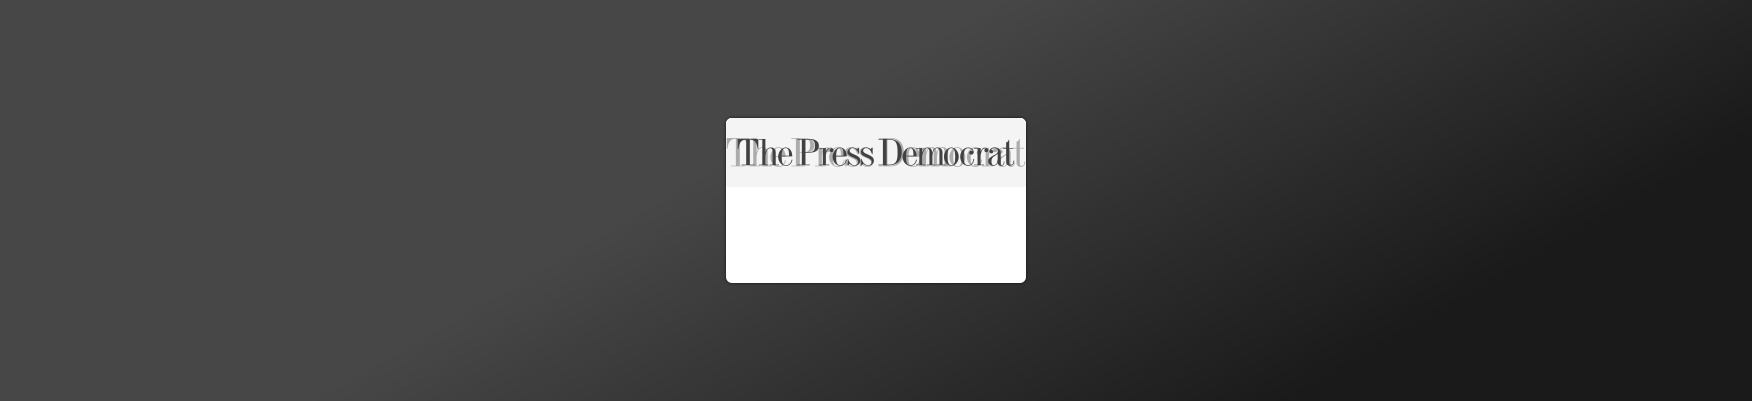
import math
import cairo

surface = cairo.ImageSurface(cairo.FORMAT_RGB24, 1752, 401)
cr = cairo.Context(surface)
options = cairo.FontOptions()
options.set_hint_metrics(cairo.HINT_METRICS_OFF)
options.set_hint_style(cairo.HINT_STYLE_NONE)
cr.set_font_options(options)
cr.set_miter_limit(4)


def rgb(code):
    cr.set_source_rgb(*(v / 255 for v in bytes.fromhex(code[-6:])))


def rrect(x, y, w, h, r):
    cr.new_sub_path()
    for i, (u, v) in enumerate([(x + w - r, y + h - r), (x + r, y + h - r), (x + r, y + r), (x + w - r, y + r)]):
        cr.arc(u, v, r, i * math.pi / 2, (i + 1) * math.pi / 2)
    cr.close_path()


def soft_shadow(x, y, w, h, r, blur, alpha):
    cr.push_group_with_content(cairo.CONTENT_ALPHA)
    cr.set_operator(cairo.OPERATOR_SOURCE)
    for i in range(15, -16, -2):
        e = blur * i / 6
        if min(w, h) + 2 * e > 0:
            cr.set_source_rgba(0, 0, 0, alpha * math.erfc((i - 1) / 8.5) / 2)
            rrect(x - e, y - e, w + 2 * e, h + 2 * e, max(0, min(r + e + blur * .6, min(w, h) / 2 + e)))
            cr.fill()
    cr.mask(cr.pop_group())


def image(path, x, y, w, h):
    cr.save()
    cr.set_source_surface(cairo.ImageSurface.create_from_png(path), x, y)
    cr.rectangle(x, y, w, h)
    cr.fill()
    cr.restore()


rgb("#ffffff")
cr.paint()
gradient = cairo.LinearGradient(1182, 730, 570, -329)
gradient.add_color_stop_rgba(0.19, 0.102, 0.102, 0.102, 1)
gradient.add_color_stop_rgba(0.59, 0.278, 0.278, 0.278, 1)
cr.set_source(gradient)
cr.rectangle(0, 0, 1752, 401)
cr.fill()
rgb("#111111")
soft_shadow(726, 118, 300, 165, 5, 1.5, 1)
rgb("#ffffff")
rrect(726, 118, 300, 165, 6)
cr.fill()
cr.new_path()
cr.move_to(732, 118)
cr.line_to(1020, 118)
cr.curve_to(1023.5, 118, 1026, 120.5, 1026, 124)
cr.line_to(1026, 187)
cr.line_to(726, 187)
cr.line_to(726, 124)
cr.curve_to(726, 120.5, 728.5, 118, 732, 118)
cr.close_path()
cr.fill()
cr.save()
cr.new_path()
cr.move_to(731, 118)
cr.line_to(1021, 118)
cr.curve_to(1024, 118, 1026, 120, 1026, 123)
cr.line_to(1026, 187)
cr.line_to(726, 187)
cr.line_to(726, 123)
cr.curve_to(726, 120, 728, 118, 731, 118)
cr.close_path()
cr.clip()
cr.set_source_rgba(0.945, 0.945, 0.945, 0.8)
cr.new_path()
cr.move_to(732, 118)
cr.line_to(1020, 118)
cr.curve_to(1023.5, 118, 1026, 120.5, 1026, 124)
cr.line_to(1026, 187)
cr.line_to(726, 187)
cr.line_to(726, 124)
cr.curve_to(726, 120.5, 728.5, 118, 732, 118)
cr.close_path()
cr.fill()
cr.restore()
image("img/1.png", 726, 138, 300, 29)
image("img/2.png", 737, 139, 278, 27)
surface.write_to_png("page.png")
